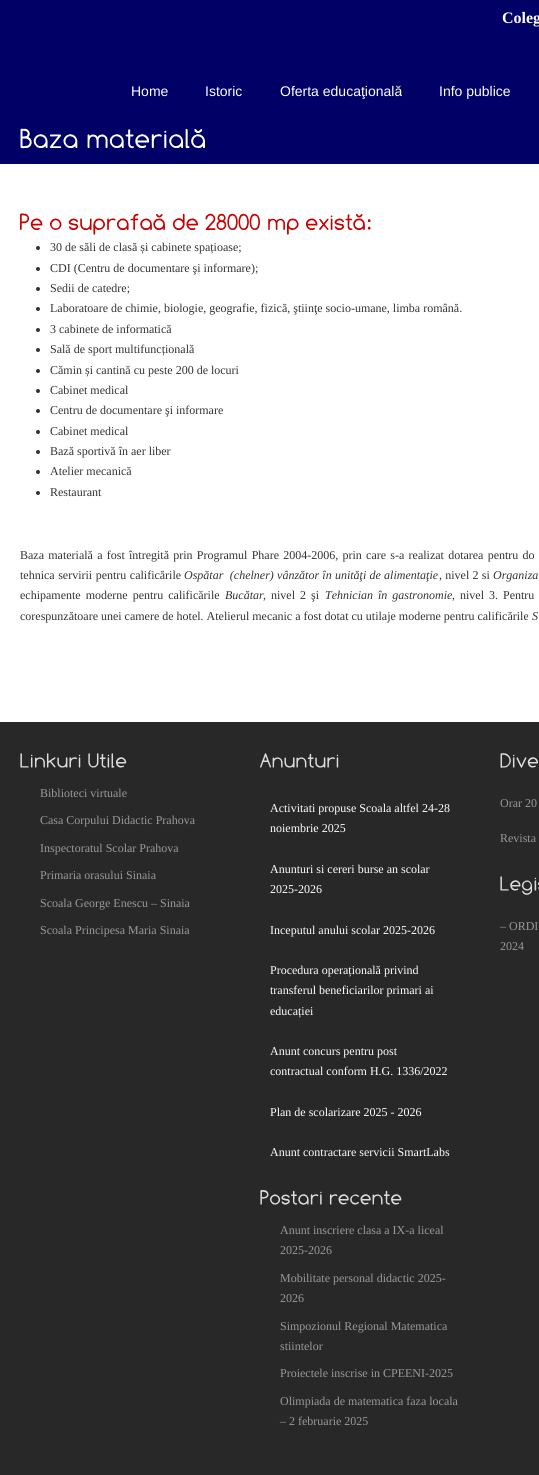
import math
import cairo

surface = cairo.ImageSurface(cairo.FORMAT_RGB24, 539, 1475)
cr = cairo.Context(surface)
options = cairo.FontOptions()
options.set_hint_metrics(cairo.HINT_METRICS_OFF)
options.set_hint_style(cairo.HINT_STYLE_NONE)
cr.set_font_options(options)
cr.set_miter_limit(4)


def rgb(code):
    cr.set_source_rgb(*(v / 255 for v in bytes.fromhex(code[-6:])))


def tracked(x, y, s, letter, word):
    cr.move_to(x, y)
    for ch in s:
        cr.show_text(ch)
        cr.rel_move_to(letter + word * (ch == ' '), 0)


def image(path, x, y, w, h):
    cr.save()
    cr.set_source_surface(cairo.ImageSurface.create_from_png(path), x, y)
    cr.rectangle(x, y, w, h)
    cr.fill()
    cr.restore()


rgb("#000066")
cr.paint()
image("img/1.png", 20, 128, 58, 21)
image("img/2.png", 87, 129, 118, 20)
rgb("#ffffff")
cr.rectangle(0, 164, 539, 558)
cr.fill()
image("img/3.png", 20, 213, 23, 17)
image("img/4.png", 50, 218, 12, 12)
image("img/5.png", 68, 213, 97, 22)
image("img/6.png", 172, 213, 26, 17)
image("img/7.png", 205, 213, 55, 17)
image("img/8.png", 268, 218, 31, 17)
image("img/9.png", 305, 214, 66, 16)
rgb("#333333")
cr.arc(38, 248, 2, 0, 2 * math.pi)
cr.fill()
cr.arc(38, 269, 2, 0, 2 * math.pi)
cr.fill()
cr.arc(38, 289, 2, 0, 2 * math.pi)
cr.fill()
cr.arc(38, 309, 2, 0, 2 * math.pi)
cr.fill()
cr.arc(38, 330, 2, 0, 2 * math.pi)
cr.fill()
cr.arc(38, 350, 2, 0, 2 * math.pi)
cr.fill()
cr.arc(38, 371, 2, 0, 2 * math.pi)
cr.fill()
cr.arc(38, 391, 2, 0, 2 * math.pi)
cr.fill()
cr.arc(38, 411, 2, 0, 2 * math.pi)
cr.fill()
cr.arc(38, 432, 2, 0, 2 * math.pi)
cr.fill()
cr.arc(38, 452, 2, 0, 2 * math.pi)
cr.fill()
cr.arc(38, 472, 2, 0, 2 * math.pi)
cr.fill()
cr.arc(38, 493, 2, 0, 2 * math.pi)
cr.fill()
rgb("#282828")
cr.rectangle(0, 722, 539, 753)
cr.fill()
image("img/10.png", 20, 753, 61, 15)
image("img/11.png", 88, 753, 39, 15)
image("img/12.png", 260, 753, 79, 15)
image("img/13.png", 260, 1190, 62, 15)
image("img/14.png", 329, 1190, 73, 15)
image("img/15.png", 500, 753, 38, 15)
image("img/16.png", 500, 876, 39, 19)
cr.select_font_face("Liberation Serif", cairo.FONT_SLANT_NORMAL, cairo.FONT_WEIGHT_BOLD)
cr.set_font_size(16)
rgb("#ffffff")
cr.move_to(502, 23)
cr.show_text("Coleg")
cr.select_font_face("Liberation Sans")
cr.set_font_size(14)
for x, y, s in [
    (131, 96, "Home"),
    (205, 96, "Istoric"),
    (280, 96, "Oferta educaţională"),
    (439, 96, "Info publice"),
]:
    cr.move_to(x, y)
    cr.show_text(s)
cr.select_font_face("Liberation Serif")
cr.set_font_size(12)
rgb("#333333")
for x, y, s in [
    (50, 251, "30 de săli de clasă și cabinete spațioase;"),
    (50, 272, "CDI (Centru de documentare şi informare);"),
    (50, 292, "Sedii de catedre;"),
    (50, 312, "Laboratoare de chimie, biologie, geografie, fizică, ştiinţe socio-umane, limba română."),
    (50, 333, "3 cabinete de informatică"),
    (50, 353, "Sală de sport multifuncțională"),
    (50, 374, "Cămin și cantină cu peste 200 de locuri"),
    (50, 394, "Cabinet medical"),
    (50, 414, "Centru de documentare şi informare"),
    (50, 435, "Cabinet medical"),
    (50, 455, "Bază sportivă în aer liber"),
    (50, 475, "Atelier mecanică"),
    (50, 496, "Restaurant"),
]:
    cr.move_to(x, y)
    cr.show_text(s)
tracked(20, 559, "Baza materială a fost întregită prin Programul Phare 2004-2006, prin care s-a realizat dotarea pentru do", 0, 1.25)
tracked(20, 579, "tehnica servirii pentru calificările", 0, 0.5)
cr.select_font_face("Liberation Serif", cairo.FONT_SLANT_ITALIC)
tracked(184, 579, "Ospătar  (chelner) vânzător în unităţi de alimentaţie", 0, 0.25)
cr.select_font_face("Liberation Serif")
tracked(439, 579, ", nivel 2 si", 0, 0.25)
cr.select_font_face("Liberation Serif", cairo.FONT_SLANT_ITALIC)
tracked(493, 579, "Organiza", 0, 0.5)
cr.select_font_face("Liberation Serif")
tracked(20, 599, "echipamente moderne pentru calificările", 0, 2)
cr.select_font_face("Liberation Serif", cairo.FONT_SLANT_ITALIC)
cr.move_to(225, 599)
cr.show_text("Bucătar")
cr.select_font_face("Liberation Serif")
tracked(263, 599, ", nivel 2 şi", 0, 2)
cr.select_font_face("Liberation Serif", cairo.FONT_SLANT_ITALIC)
tracked(325, 599, "Tehnician în gastronomie", 0, 2)
cr.select_font_face("Liberation Serif")
tracked(452, 599, ", nivel 3. Pentru", 0, 2)
cr.move_to(20, 620)
cr.show_text("corespunzătoare unei camere de hotel. Atelierul mecanic a fost dotat cu utilaje moderne pentru calificările")
cr.select_font_face("Liberation Serif", cairo.FONT_SLANT_ITALIC)
cr.move_to(532, 620)
cr.show_text("S")
cr.select_font_face("Liberation Serif")
rgb("#999999")
for x, y, s in [
    (40, 797, "Biblioteci virtuale"),
    (40, 824, "Casa Corpului Didactic Prahova"),
    (40, 852, "Inspectoratul Scolar Prahova"),
    (40, 879, "Primaria orasului Sinaia"),
    (40, 907, "Scoala George Enescu – Sinaia"),
    (40, 934, "Scoala Principesa Maria Sinaia"),
]:
    cr.move_to(x, y)
    cr.show_text(s)
rgb("#ffffff")
for x, y, s in [
    (270, 812, "Activitati propuse Scoala altfel 24-28"),
    (270, 832, "noiembrie 2025"),
    (270, 873, "Anunturi si cereri burse an scolar"),
    (270, 893, "2025-2026"),
    (270, 934, "Inceputul anului scolar 2025-2026"),
    (270, 974, "Procedura operațională privind"),
    (270, 994, "transferul beneficiarilor primari ai"),
    (270, 1015, "educației"),
    (270, 1055, "Anunt concurs pentru post"),
    (270, 1075, "contractual conform H.G. 1336/2022"),
    (270, 1116, "Plan de scolarizare 2025 - 2026"),
    (270, 1156, "Anunt contractare servicii SmartLabs"),
]:
    cr.move_to(x, y)
    cr.show_text(s)
rgb("#999999")
for x, y, s in [
    (280, 1234, "Anunt inscriere clasa a IX-a liceal"),
    (280, 1254, "2025-2026"),
    (280, 1282, "Mobilitate personal didactic 2025-"),
    (280, 1302, "2026"),
    (280, 1330, "Simpozionul Regional Matematica"),
    (280, 1350, "stiintelor"),
    (280, 1377, "Proiectele inscrise in CPEENI-2025"),
    (280, 1405, "Olimpiada de matematica faza locala"),
    (280, 1425, "– 2 februarie 2025"),
    (500, 807, "Orar 20"),
    (500, 842, "Revista"),
    (500, 930, "– ORDI"),
    (500, 950, "2024"),
]:
    cr.move_to(x, y)
    cr.show_text(s)
surface.write_to_png("page.png")
